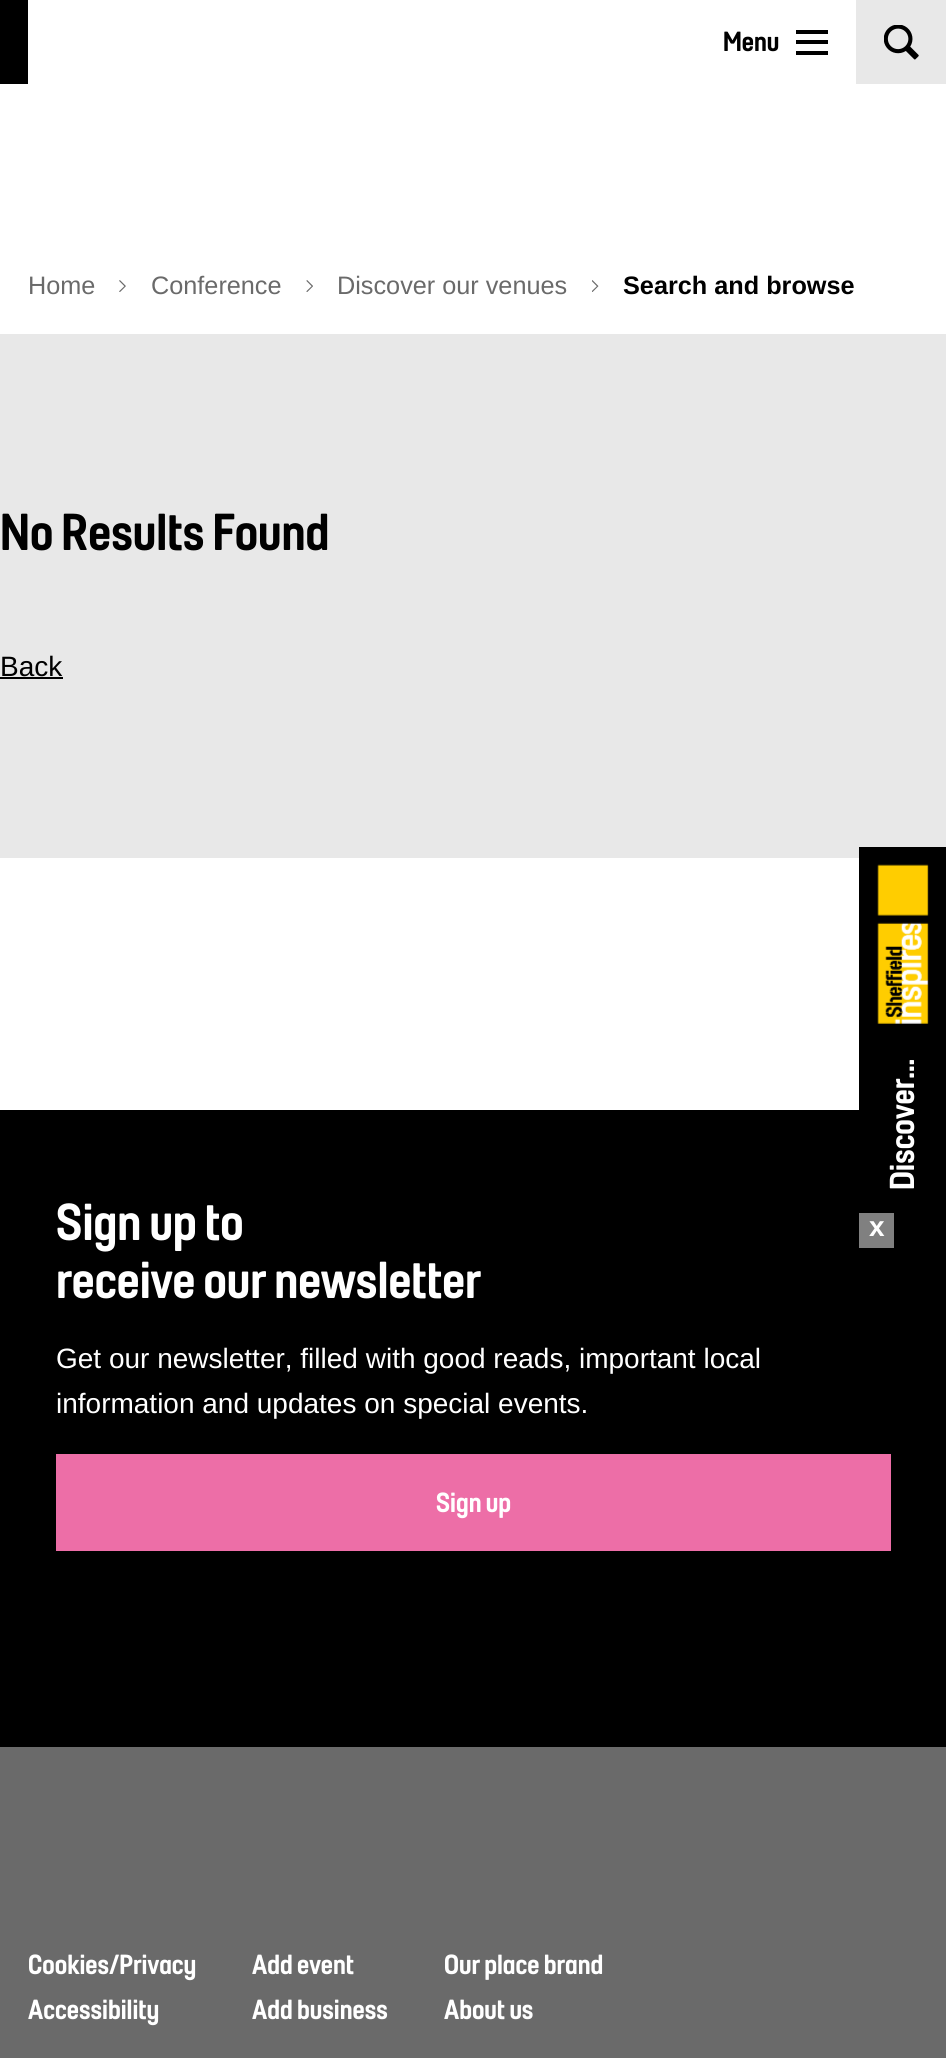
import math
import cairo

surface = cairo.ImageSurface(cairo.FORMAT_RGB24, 946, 2058)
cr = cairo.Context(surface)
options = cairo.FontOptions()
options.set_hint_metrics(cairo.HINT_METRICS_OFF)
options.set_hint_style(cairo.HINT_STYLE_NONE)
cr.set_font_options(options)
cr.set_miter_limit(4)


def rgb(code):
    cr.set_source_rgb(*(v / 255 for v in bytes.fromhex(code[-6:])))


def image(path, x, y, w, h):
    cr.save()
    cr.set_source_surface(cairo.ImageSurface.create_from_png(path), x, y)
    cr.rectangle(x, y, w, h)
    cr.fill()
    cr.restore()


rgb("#ffffff")
cr.paint()
for x, y, w, h, color in [
    (0, 0, 28, 84, "#000000"),
    (796, 40, 32, 4, "#000000"),
    (796, 30, 32, 4, "#000000"),
    (796, 51, 32, 4, "#000000"),
    (856, 0, 90, 84, "#e8e8e8"),
]:
    rgb(color)
    cr.rectangle(x, y, w, h)
    cr.fill()
image("img/1.png", 884, 25, 35, 35)
image("img/2.png", 119, 280, 7, 12)
image("img/3.png", 306, 280, 7, 12)
image("img/4.png", 592, 280, 7, 12)
for x, y, w, h, color in [
    (0, 334, 946, 524, "#e8e8e8"),
    (0, 677, 63, 2, "#000000"),
    (859, 847, 87, 263, "#000000"),
]:
    rgb(color)
    cr.rectangle(x, y, w, h)
    cr.fill()
image("img/5.png", 877, 864, 52, 160)
for x, y, w, h, color in [
    (0, 1110, 946, 637, "#000000"),
    (859, 1213, 35, 35, "#808080"),
    (56, 1454, 835, 97, "#ed6ea7"),
    (0, 1747, 946, 311, "#6a6a6a"),
]:
    rgb(color)
    cr.rectangle(x, y, w, h)
    cr.fill()
cr.select_font_face("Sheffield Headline")
cr.set_font_size(28)
rgb("#000000")
cr.move_to(723, 51)
cr.show_text("Menu")
cr.select_font_face("Liberation Sans")
cr.set_font_size(25.25)
rgb("#6a6a6a")
for x, y, s in [
    (28, 294, "Home"),
    (151, 294, "Conference"),
    (337, 294, "Discover our venues"),
]:
    cr.move_to(x, y)
    cr.show_text(s)
cr.select_font_face("Liberation Sans", cairo.FONT_SLANT_NORMAL, cairo.FONT_WEIGHT_BOLD)
rgb("#000000")
cr.move_to(623, 294)
cr.show_text("Search and browse")
cr.select_font_face("Sheffield Headline")
cr.set_font_size(52.5)
cr.move_to(0, 550)
cr.show_text("No Results Found")
cr.select_font_face("Liberation Sans")
cr.set_font_size(28)
cr.move_to(0, 676)
cr.show_text("Back")
cr.select_font_face("Sheffield Headline")
cr.set_font_size(35)
rgb("#ffffff")
cr.save()
cr.translate(914, 1190)
cr.rotate(-90 * math.pi / 180)
cr.move_to(0, 0)
cr.show_text("Discover...")
cr.restore()
cr.select_font_face("Liberation Sans", cairo.FONT_SLANT_NORMAL, cairo.FONT_WEIGHT_BOLD)
cr.set_font_size(28)
cr.move_to(869, 1236)
cr.show_text("x")
cr.select_font_face("Sheffield Headline")
cr.set_font_size(52.5)
cr.move_to(56, 1240)
cr.show_text("Sign up to")
cr.move_to(56, 1298)
cr.show_text("receive our newsletter")
cr.select_font_face("Liberation Sans")
cr.set_font_size(28)
cr.move_to(56, 1368)
cr.show_text("Get our newsletter, filled with good reads, important local")
cr.move_to(56, 1413)
cr.show_text("information and updates on special events.")
cr.select_font_face("Sheffield Headline")
for x, y, s in [
    (436, 1512, "Sign up"),
    (28, 1974, "Cookies/Privacy"),
    (28, 2019, "Accessibility"),
    (252, 1974, "Add event"),
    (252, 2019, "Add business"),
    (444, 1974, "Our place brand"),
    (444, 2019, "About us"),
]:
    cr.move_to(x, y)
    cr.show_text(s)
surface.write_to_png("page.png")
